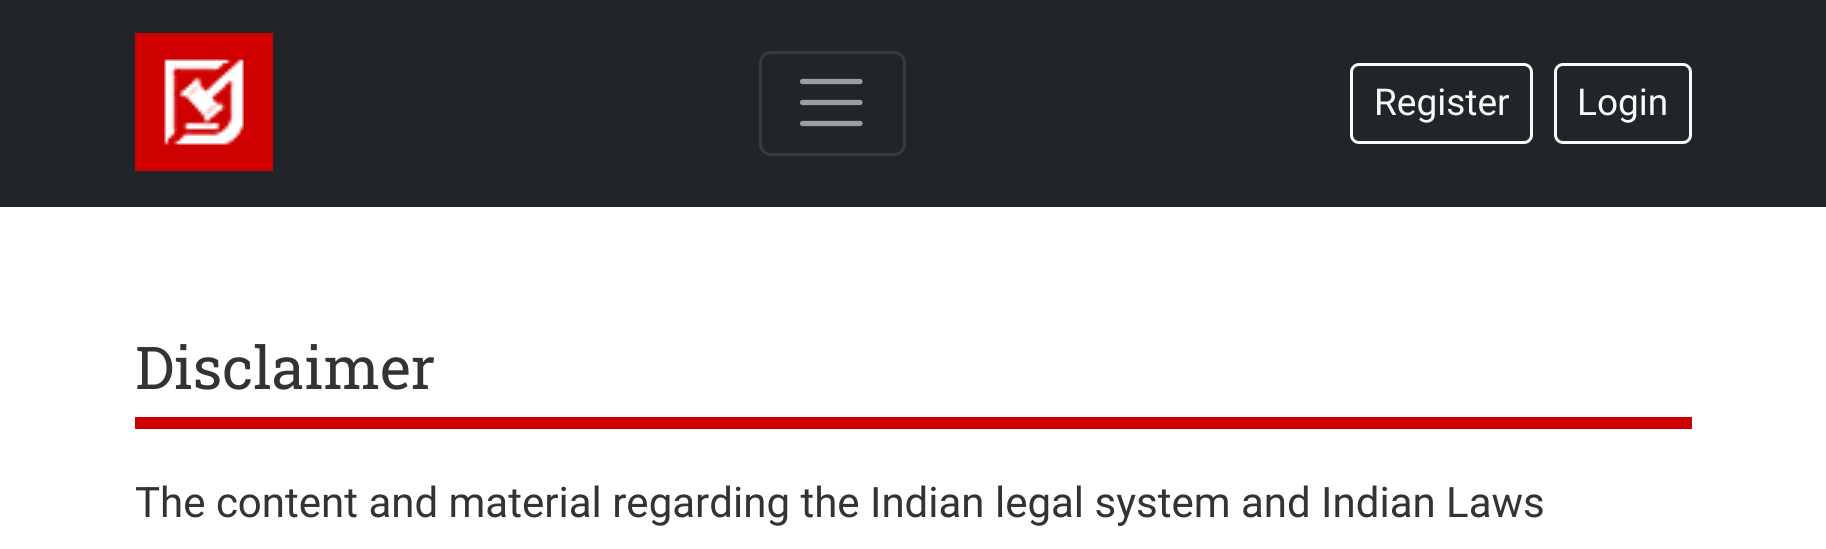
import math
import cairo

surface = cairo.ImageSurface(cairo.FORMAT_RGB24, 1826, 549)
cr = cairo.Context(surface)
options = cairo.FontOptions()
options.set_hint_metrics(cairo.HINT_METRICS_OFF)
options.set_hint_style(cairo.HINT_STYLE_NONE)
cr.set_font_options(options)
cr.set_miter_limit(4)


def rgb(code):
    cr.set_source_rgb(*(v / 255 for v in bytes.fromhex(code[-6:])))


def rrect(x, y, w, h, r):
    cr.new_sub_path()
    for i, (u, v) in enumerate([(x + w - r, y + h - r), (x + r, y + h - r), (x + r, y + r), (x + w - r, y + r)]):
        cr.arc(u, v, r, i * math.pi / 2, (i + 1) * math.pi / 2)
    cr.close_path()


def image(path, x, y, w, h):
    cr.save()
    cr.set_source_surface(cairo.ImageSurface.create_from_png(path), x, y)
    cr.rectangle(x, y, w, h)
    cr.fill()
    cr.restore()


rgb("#ffffff")
cr.paint()
rgb("#212529")
cr.rectangle(0, 0, 1826, 207)
cr.fill()
image("img/1.png", 135, 33, 138, 138)
rrect(760.5, 52.5, 144, 102, 10.5)
rgb("#373b3e")
cr.set_line_width(3)
cr.stroke()
cr.new_path()
cr.move_to(802.5, 81.5)
cr.line_to(860, 81.5)
cr.move_to(802.5, 102.5)
cr.line_to(860, 102.5)
cr.move_to(802.5, 123.5)
cr.line_to(860, 123.5)
rgb("#9b9d9f")
cr.set_line_width(5.2)
cr.set_line_cap(cairo.LINE_CAP_ROUND)
cr.stroke()
rrect(1351.5, 64.5, 180, 78, 7.5)
rgb("#f8f9fa")
cr.set_line_width(3)
cr.set_line_cap(cairo.LINE_CAP_BUTT)
cr.stroke()
rrect(1555.5, 64.5, 135, 78, 7.5)
cr.stroke()
rgb("#ce0000")
cr.rectangle(135, 417, 1557, 12)
cr.fill()
cr.select_font_face("Roboto")
cr.set_font_size(37)
rgb("#f8f9fa")
cr.move_to(1374, 115)
cr.show_text("Register")
cr.move_to(1577, 115)
cr.show_text("Login")
cr.select_font_face("Roboto Slab")
cr.set_font_size(59)
rgb("#333333")
cr.move_to(135, 389)
cr.show_text("Disclaimer")
cr.select_font_face("Roboto")
cr.set_font_size(42)
cr.move_to(135, 517)
cr.show_text("The content and material regarding the Indian legal system and Indian Laws")
surface.write_to_png("page.png")
